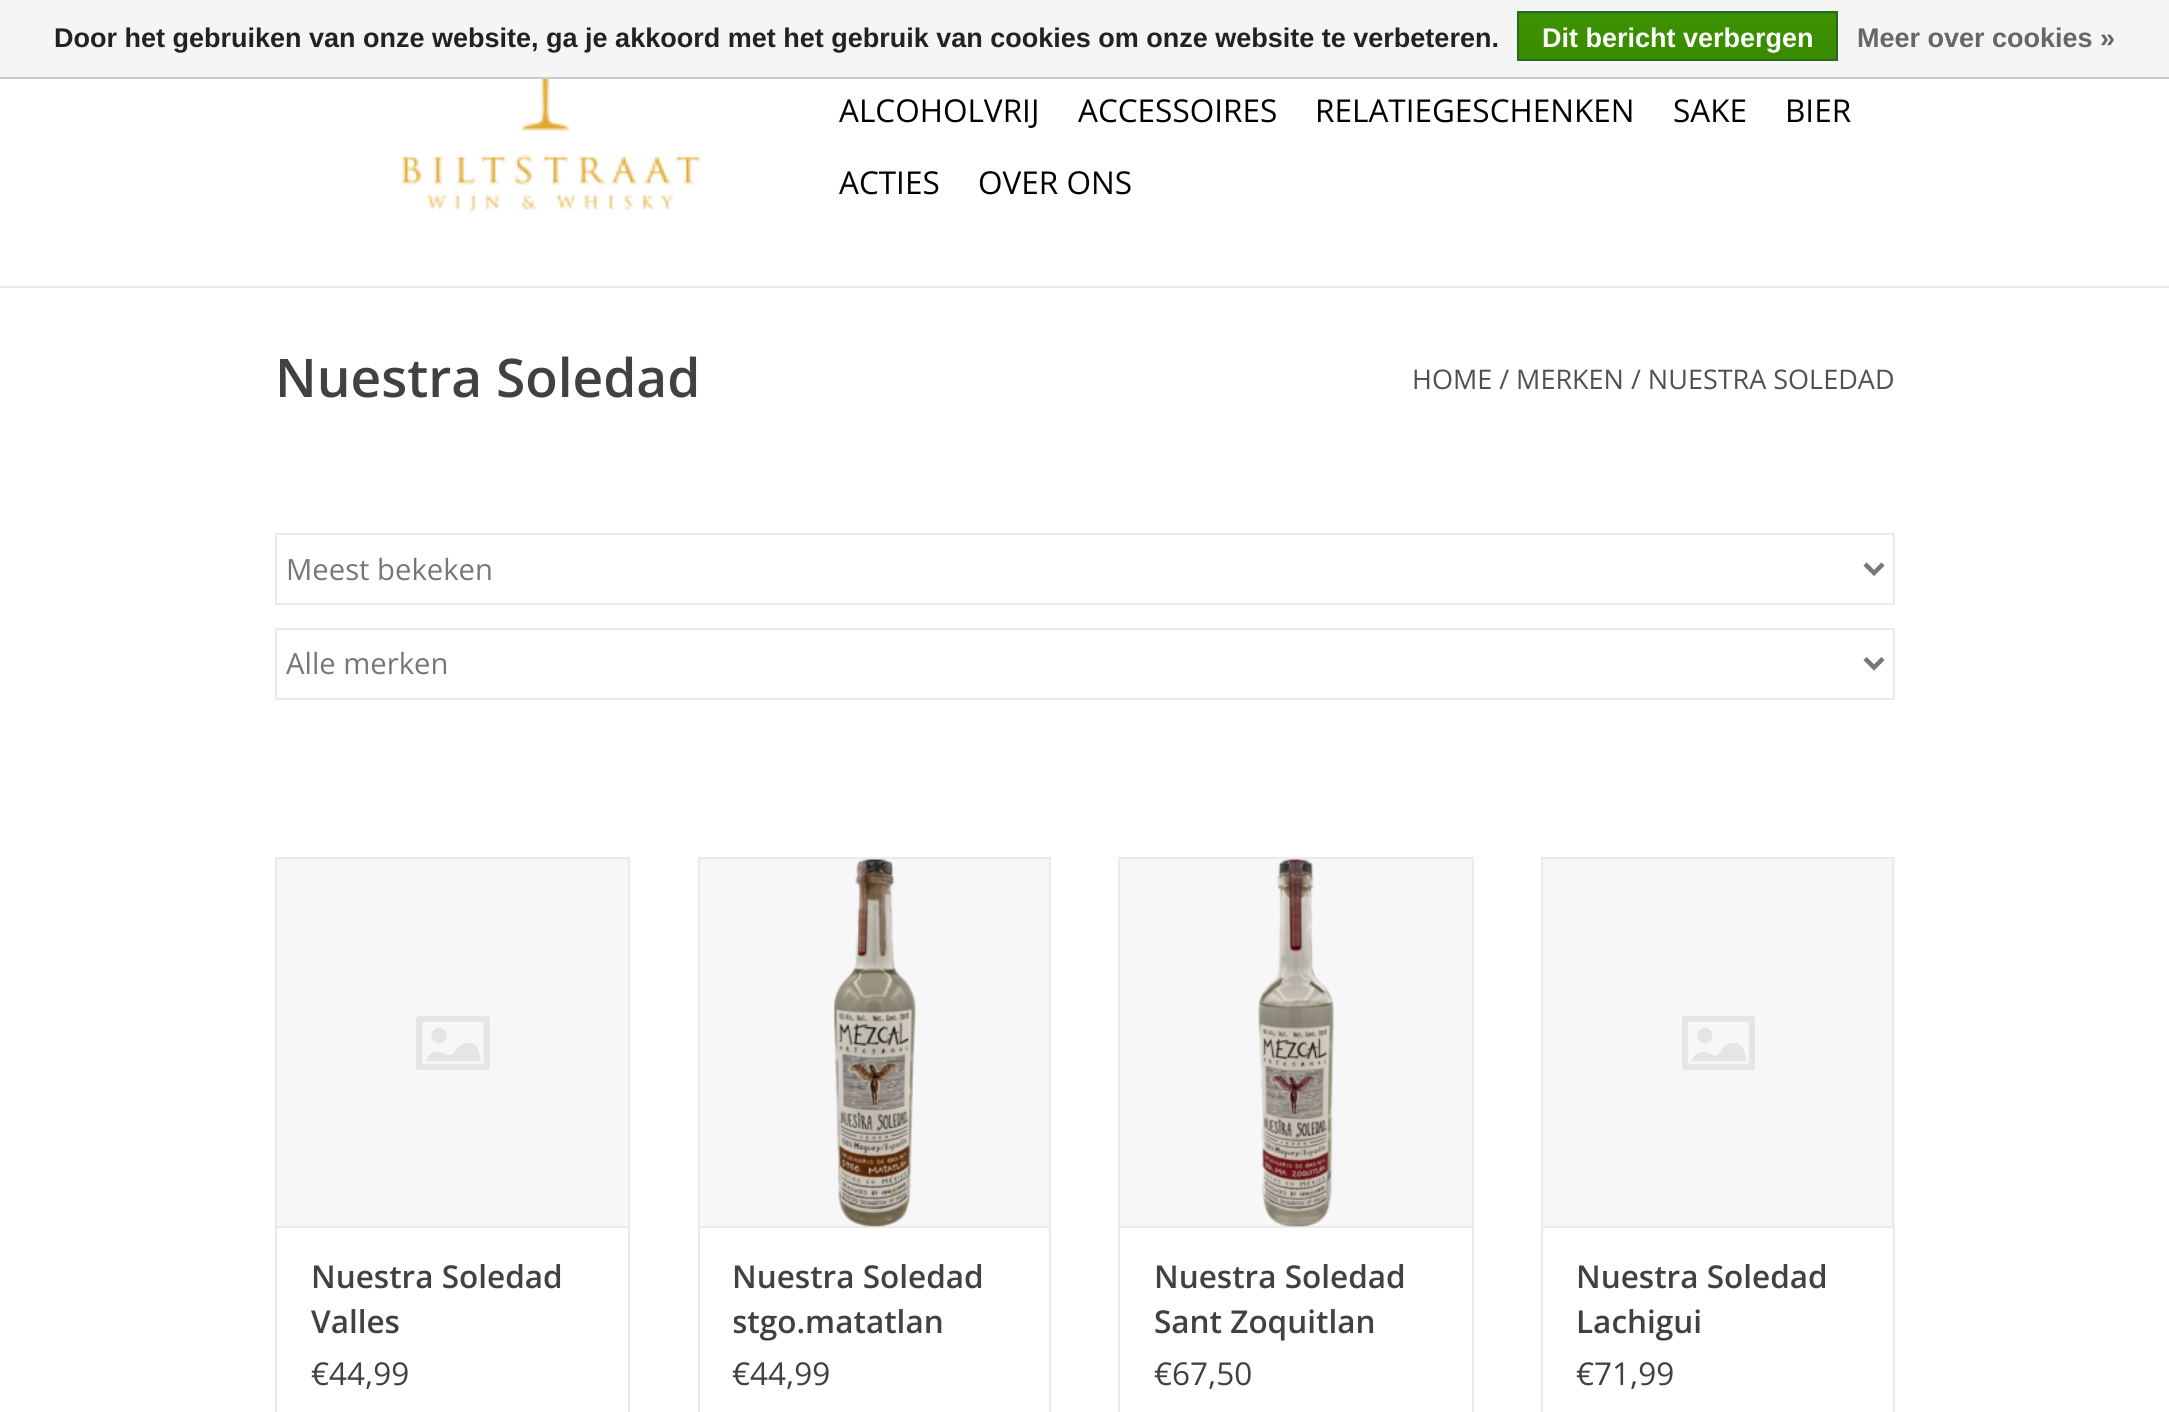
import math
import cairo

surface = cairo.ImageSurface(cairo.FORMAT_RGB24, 2169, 1412)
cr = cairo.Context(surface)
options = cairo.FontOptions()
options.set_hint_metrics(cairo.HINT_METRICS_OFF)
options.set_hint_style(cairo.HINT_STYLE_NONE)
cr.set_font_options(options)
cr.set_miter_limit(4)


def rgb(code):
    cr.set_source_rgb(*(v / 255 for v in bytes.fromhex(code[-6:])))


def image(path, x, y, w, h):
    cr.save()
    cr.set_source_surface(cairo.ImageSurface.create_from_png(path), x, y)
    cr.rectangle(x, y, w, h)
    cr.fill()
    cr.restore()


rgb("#ffffff")
cr.paint()
rgb("#f5f5f5")
cr.rectangle(0, 0, 2169, 77)
cr.fill()
rgb("#cccccc")
cr.rectangle(0, 77, 2169, 2)
cr.fill()
gradient = cairo.LinearGradient(1677, -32, 1677, 14)
gradient.add_color_stop_rgba(0, 0.235, 0.576, 0, 1)
gradient.add_color_stop_rgba(1, 0.224, 0.541, 0, 1)
cr.set_source(gradient)
cr.rectangle(1517, 13, 321, 1)
cr.fill()
gradient = cairo.LinearGradient(1677, 13, 1677, 59)
gradient.add_color_stop_rgba(0, 0.235, 0.576, 0, 1)
gradient.add_color_stop_rgba(1, 0.224, 0.541, 0, 1)
cr.set_source(gradient)
cr.rectangle(1519, 14, 317, 45)
cr.fill()
cr.rectangle(1518, 12, 319, 48)
rgb("#29691d")
cr.stroke()
rgb("#eaeaea")
cr.rectangle(0, 286, 2169, 2)
cr.fill()
image("img/1.png", 400, 79, 301, 134)
cr.rectangle(276, 534, 1618, 70)
cr.stroke()
cr.new_path()
cr.move_to(1865, 564)
cr.line_to(1874, 573)
cr.line_to(1883, 564)
rgb("#777777")
cr.set_line_width(4.5)
cr.stroke()
cr.rectangle(276, 629, 1618, 70)
rgb("#eaeaea")
cr.set_line_width(2)
cr.stroke()
cr.new_path()
cr.move_to(1865, 658.5)
cr.line_to(1874, 667.5)
cr.line_to(1883, 658.5)
rgb("#777777")
cr.set_line_width(4.5)
cr.stroke()
for x, y, w, h, color in [
    (277, 859, 351, 367, "#f7f7f7"),
    (275, 857, 355, 2, "#eaeaea"),
    (628, 857, 2, 369, "#eaeaea"),
    (275, 857, 2, 369, "#eaeaea"),
]:
    rgb(color)
    cr.rectangle(x, y, w, h)
    cr.fill()
image("img/2.png", 416, 1015, 74, 55)
cr.rectangle(276, 1227, 353, 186)
cr.set_line_width(2)
cr.stroke()
for x, y, w, h, color in [
    (700, 859, 349, 367, "#f7f7f7"),
    (698, 857, 353, 2, "#eaeaea"),
    (1049, 857, 2, 369, "#eaeaea"),
    (698, 857, 2, 369, "#eaeaea"),
]:
    rgb(color)
    cr.rectangle(x, y, w, h)
    cr.fill()
cr.rectangle(699, 1227, 351, 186)
cr.stroke()
image("img/3.png", 834, 859, 82, 368)
for x, y, w, h, color in [
    (1120, 859, 352, 367, "#f7f7f7"),
    (1118, 857, 356, 2, "#eaeaea"),
    (1472, 857, 2, 369, "#eaeaea"),
    (1118, 857, 2, 369, "#eaeaea"),
]:
    rgb(color)
    cr.rectangle(x, y, w, h)
    cr.fill()
cr.rectangle(1119, 1227, 354, 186)
cr.stroke()
image("img/4.png", 1258, 859, 76, 368)
for x, y, w, h, color in [
    (1543, 859, 352, 367, "#f7f7f7"),
    (1541, 857, 354, 2, "#eaeaea"),
    (1892, 857, 2, 369, "#eaeaea"),
    (1541, 857, 2, 369, "#eaeaea"),
]:
    rgb(color)
    cr.rectangle(x, y, w, h)
    cr.fill()
image("img/5.png", 1682, 1015, 73, 55)
cr.rectangle(1542, 1227, 352, 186)
cr.stroke()
cr.select_font_face("Liberation Sans", cairo.FONT_SLANT_NORMAL, cairo.FONT_WEIGHT_BOLD)
cr.set_font_size(27)
rgb("#222222")
cr.move_to(54, 47)
cr.show_text("Door het gebruiken van onze website, ga je akkoord met het gebruik van cookies om onze website te verbeteren.")
rgb("#ffffff")
cr.move_to(1542, 47)
cr.show_text("Dit bericht verbergen")
rgb("#666666")
cr.move_to(1857, 47)
cr.show_text("Meer over cookies »")
cr.select_font_face("Open Sans")
cr.set_font_size(31.5)
rgb("#000000")
for x, y, s in [
    (839, 122, "ALCOHOLVRIJ"),
    (1078, 122, "ACCESSOIRES"),
    (1315, 122, "RELATIEGESCHENKEN"),
    (1673, 122, "SAKE"),
    (1785, 122, "BIER"),
    (839, 194, "ACTIES"),
    (978, 194, "OVER ONS"),
]:
    cr.move_to(x, y)
    cr.show_text(s)
cr.select_font_face("Open Sans SemiBold")
cr.set_font_size(53.25)
rgb("#414141")
cr.move_to(275, 397)
cr.show_text("Nuestra Soledad")
cr.select_font_face("Open Sans")
cr.set_font_size(27)
rgb("#505050")
cr.move_to(1412, 389)
cr.show_text("HOME / MERKEN / NUESTRA SOLEDAD")
cr.set_font_size(29.25)
rgb("#777777")
cr.move_to(286, 580)
cr.show_text("Meest bekeken")
cr.move_to(286, 674)
cr.show_text("Alle merken")
cr.select_font_face("Open Sans SemiBold")
cr.set_font_size(31.5)
rgb("#414141")
cr.move_to(311, 1288)
cr.show_text("Nuestra Soledad")
cr.move_to(311, 1333)
cr.show_text("Valles")
cr.select_font_face("Open Sans")
cr.move_to(311, 1385)
cr.show_text("€44,99")
cr.select_font_face("Open Sans SemiBold")
cr.move_to(732, 1288)
cr.show_text("Nuestra Soledad")
cr.save()
cr.rectangle(734, 1253, 281, 90)
cr.clip()
cr.move_to(732, 1333)
cr.show_text("stgo.matatlan")
cr.restore()
cr.select_font_face("Open Sans")
cr.move_to(732, 1385)
cr.show_text("€44,99")
cr.select_font_face("Open Sans SemiBold")
cr.move_to(1154, 1288)
cr.show_text("Nuestra Soledad")
cr.move_to(1154, 1333)
cr.show_text("Sant Zoquitlan")
cr.select_font_face("Open Sans")
cr.move_to(1154, 1385)
cr.show_text("€67,50")
cr.select_font_face("Open Sans SemiBold")
cr.move_to(1576, 1288)
cr.show_text("Nuestra Soledad")
cr.move_to(1576, 1333)
cr.show_text("Lachigui")
cr.select_font_face("Open Sans")
cr.move_to(1576, 1385)
cr.show_text("€71,99")
surface.write_to_png("page.png")
